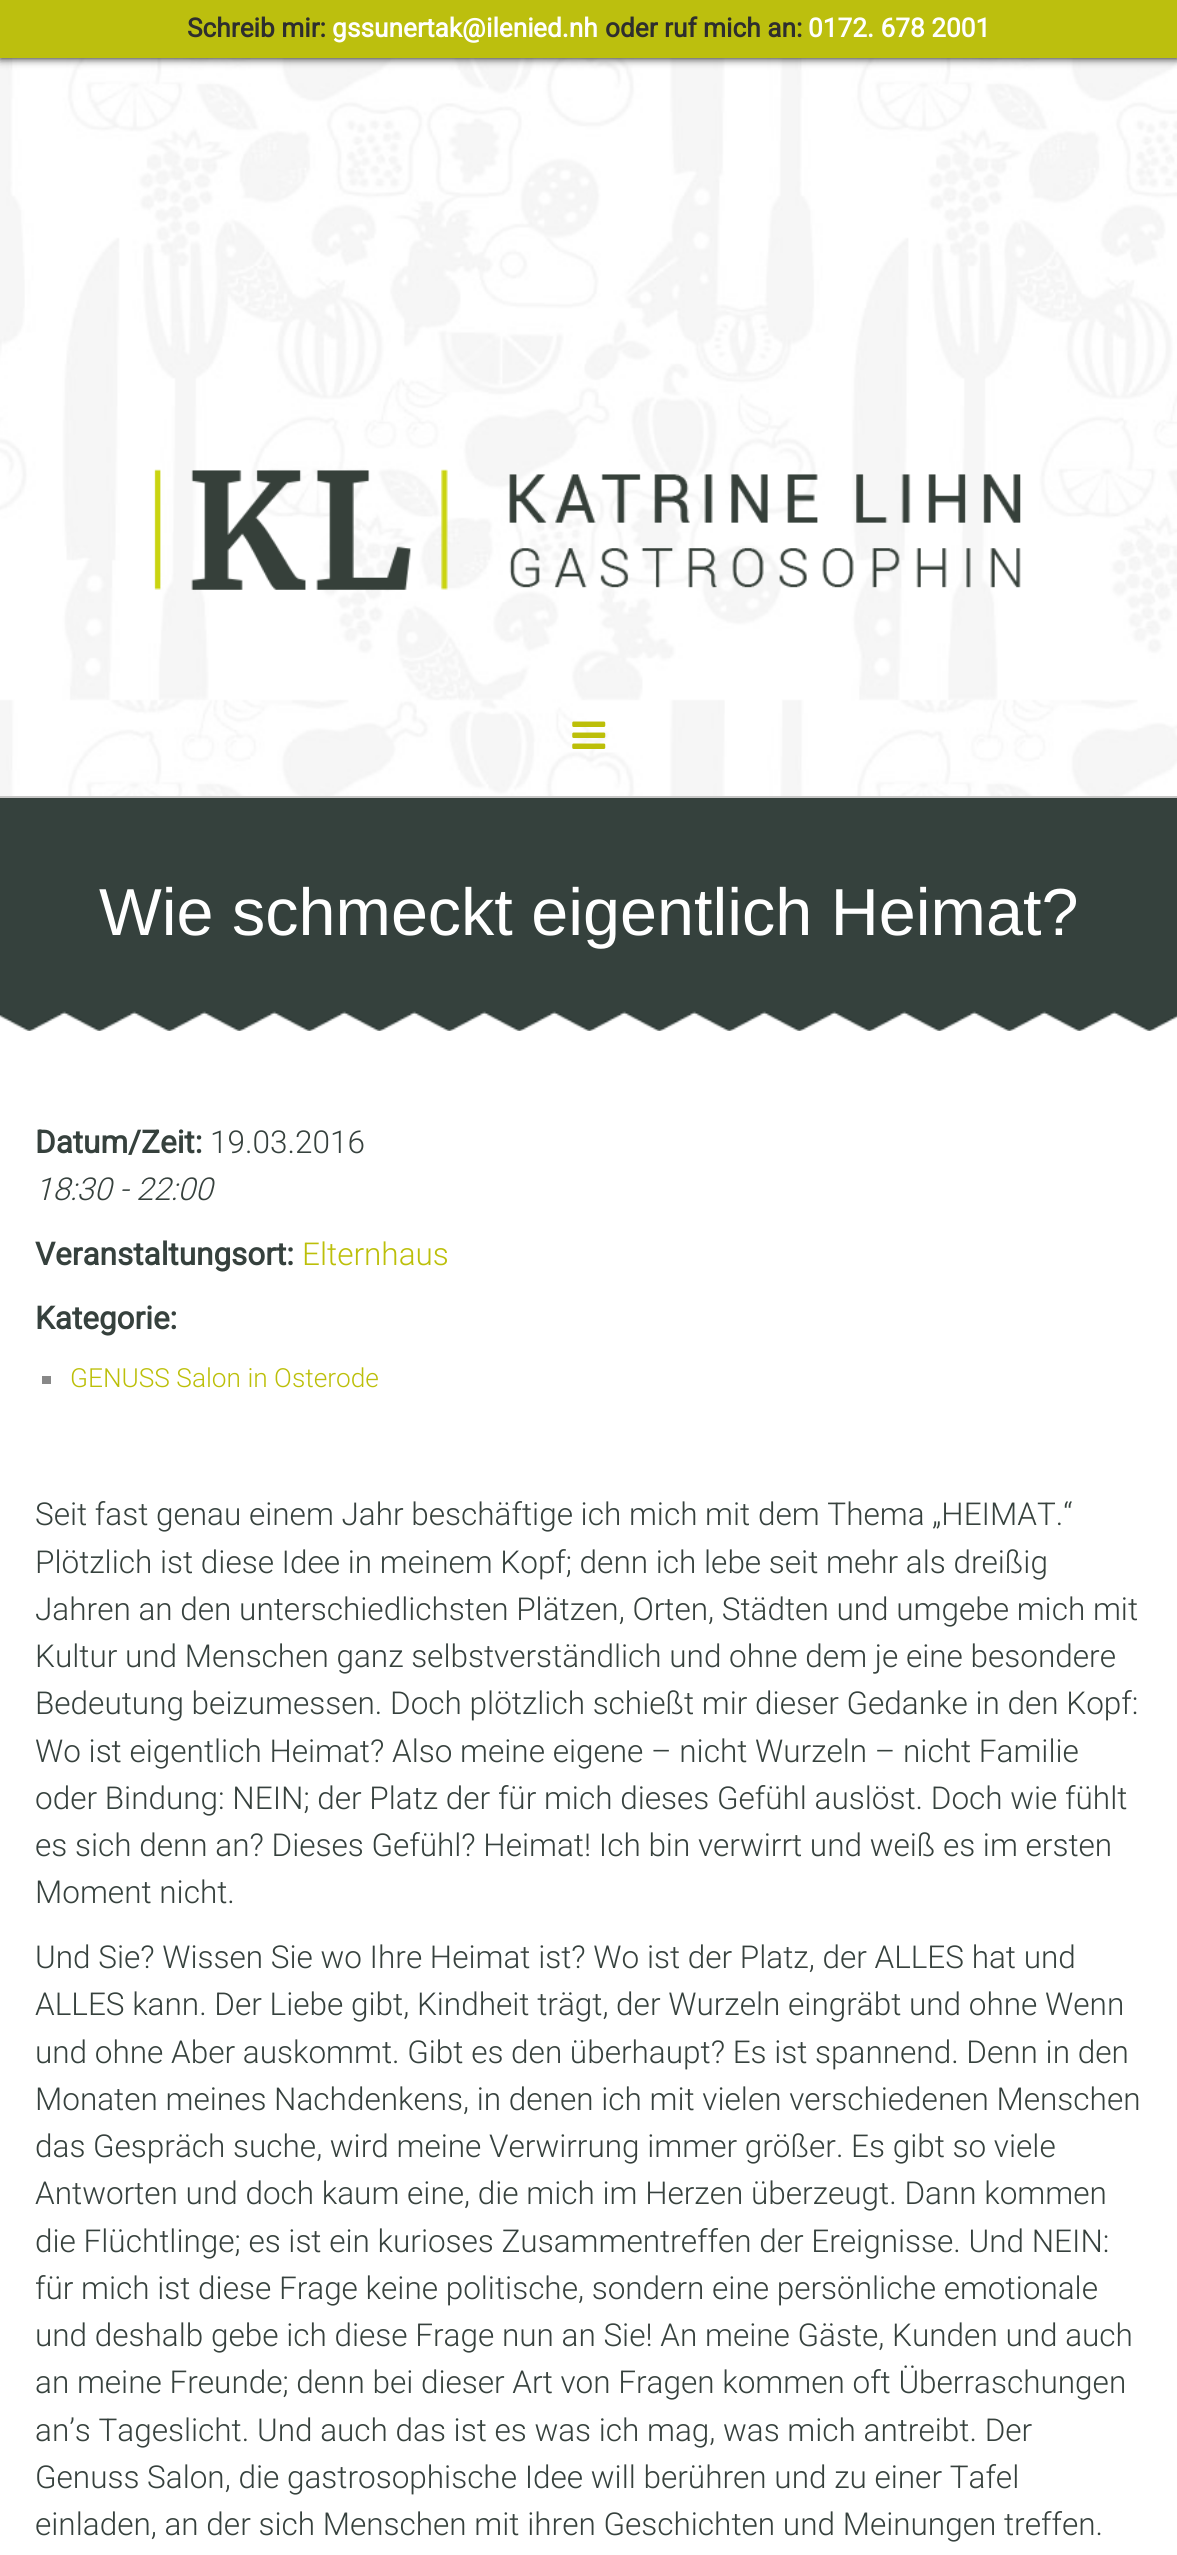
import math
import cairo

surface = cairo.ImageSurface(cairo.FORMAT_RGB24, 1177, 2555)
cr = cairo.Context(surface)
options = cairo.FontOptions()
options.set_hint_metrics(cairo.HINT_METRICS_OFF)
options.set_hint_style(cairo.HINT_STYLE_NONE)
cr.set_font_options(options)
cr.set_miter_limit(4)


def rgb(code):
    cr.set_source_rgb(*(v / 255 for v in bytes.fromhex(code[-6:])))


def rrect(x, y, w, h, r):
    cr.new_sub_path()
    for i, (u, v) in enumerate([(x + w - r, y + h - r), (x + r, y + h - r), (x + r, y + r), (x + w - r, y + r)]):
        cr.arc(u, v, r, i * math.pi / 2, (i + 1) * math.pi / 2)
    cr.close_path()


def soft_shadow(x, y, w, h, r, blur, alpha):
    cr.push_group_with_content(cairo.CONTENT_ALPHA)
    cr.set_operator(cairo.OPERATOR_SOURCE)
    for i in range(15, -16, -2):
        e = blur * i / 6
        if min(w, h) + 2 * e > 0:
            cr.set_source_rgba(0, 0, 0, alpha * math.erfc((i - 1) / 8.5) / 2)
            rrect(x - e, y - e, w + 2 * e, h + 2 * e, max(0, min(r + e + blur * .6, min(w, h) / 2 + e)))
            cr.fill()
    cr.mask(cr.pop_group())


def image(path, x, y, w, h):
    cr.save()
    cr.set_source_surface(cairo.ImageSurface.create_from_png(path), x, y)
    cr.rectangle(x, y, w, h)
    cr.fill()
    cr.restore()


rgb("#ffffff")
cr.paint()
image("img/1.png", 0, 58, 1177, 738)
rgb("#000000")
soft_shadow(0, 0, 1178, 58, 0, 4.5, 1)
rgb("#bcbf0e")
cr.rectangle(0, 0, 1177, 58)
cr.fill()
image("img/2.png", 154, 469, 867, 121)
rgb("#c6c6c5")
cr.rectangle(0, 796, 1177, 2)
cr.fill()
image("img/3.png", 572, 721, 34, 28)
image("img/4.png", 0, 798, 1177, 233)
rgb("#888888")
cr.rectangle(42, 1376, 9, 8)
cr.fill()
cr.select_font_face("Roboto", cairo.FONT_SLANT_NORMAL, cairo.FONT_WEIGHT_BOLD)
cr.set_font_size(26.25)
rgb("#2e2e2e")
cr.move_to(187, 37)
cr.show_text("Schreib mir:")
rgb("#ffffff")
for x, y, s in [
    (332, 37, "g"),
    (347, 37, "ssune"),
    (417, 37, "rtak@"),
    (486, 37, "ileni"),
    (533, 37, "ed.nh"),
]:
    cr.move_to(x, y)
    cr.show_text(s)
rgb("#2e2e2e")
cr.move_to(605, 37)
cr.show_text("oder ruf mich an:")
rgb("#ffffff")
cr.move_to(808, 37)
cr.show_text("0172. 678 2001")
cr.select_font_face("Liberation Sans")
cr.set_font_size(66.5)
cr.move_to(99, 935)
cr.show_text("Wie schmeckt eigentlich Heimat?")
cr.select_font_face("Roboto", cairo.FONT_SLANT_NORMAL, cairo.FONT_WEIGHT_BOLD)
cr.set_font_size(31.5)
rgb("#36413d")
cr.move_to(35, 1153)
cr.show_text("Datum/Zeit:")
cr.select_font_face("Roboto Light")
cr.move_to(210, 1153)
cr.show_text("19.03.2016")
cr.select_font_face("Roboto Light", cairo.FONT_SLANT_ITALIC)
cr.move_to(35, 1200)
cr.show_text("18:30 - 22:00")
cr.select_font_face("Roboto", cairo.FONT_SLANT_NORMAL, cairo.FONT_WEIGHT_BOLD)
cr.move_to(35, 1265)
cr.show_text("Veranstaltungsort:")
cr.select_font_face("Roboto Light")
rgb("#bcbf09")
cr.move_to(302, 1265)
cr.show_text("Elternhaus")
cr.select_font_face("Roboto", cairo.FONT_SLANT_NORMAL, cairo.FONT_WEIGHT_BOLD)
rgb("#36413d")
cr.move_to(35, 1329)
cr.show_text("Kategorie:")
cr.select_font_face("Roboto Light")
cr.set_font_size(26.25)
rgb("#bcbf09")
cr.move_to(70, 1387)
cr.show_text("GENUSS Salon in Osterode")
cr.set_font_size(31.5)
rgb("#36413d")
for x, y, s in [
    (35, 1525, "Seit fast genau einem Jahr beschäftige ich mich mit dem Thema „HEIMAT.“"),
    (35, 1573, "Plötzlich ist diese Idee in meinem Kopf; denn ich lebe seit mehr als dreißig"),
    (35, 1620, "Jahren an den unterschiedlichsten Plätzen, Orten, Städten und umgebe mich mit"),
    (35, 1667, "Kultur und Menschen ganz selbstverständlich und ohne dem je eine besondere"),
    (35, 1714, "Bedeutung beizumessen. Doch plötzlich schießt mir dieser Gedanke in den Kopf:"),
    (35, 1762, "Wo ist eigentlich Heimat? Also meine eigene – nicht Wurzeln – nicht Familie"),
    (35, 1809, "oder Bindung: NEIN; der Platz der für mich dieses Gefühl auslöst. Doch wie fühlt"),
    (35, 1856, "es sich denn an? Dieses Gefühl? Heimat! Ich bin verwirrt und weiß es im ersten"),
    (35, 1903, "Moment nicht."),
    (35, 1968, "Und Sie? Wissen Sie wo Ihre Heimat ist? Wo ist der Platz, der ALLES hat und"),
    (35, 2015, "ALLES kann. Der Liebe gibt, Kindheit trägt, der Wurzeln eingräbt und ohne Wenn"),
    (35, 2063, "und ohne Aber auskommt. Gibt es den überhaupt? Es ist spannend. Denn in den"),
    (35, 2110, "Monaten meines Nachdenkens, in denen ich mit vielen verschiedenen Menschen"),
    (35, 2157, "das Gespräch suche, wird meine Verwirrung immer größer. Es gibt so viele"),
    (35, 2204, "Antworten und doch kaum eine, die mich im Herzen überzeugt. Dann kommen"),
    (35, 2252, "die Flüchtlinge; es ist ein kurioses Zusammentreffen der Ereignisse. Und NEIN:"),
    (35, 2299, "für mich ist diese Frage keine politische, sondern eine persönliche emotionale"),
    (35, 2346, "und deshalb gebe ich diese Frage nun an Sie! An meine Gäste, Kunden und auch"),
    (35, 2393, "an meine Freunde; denn bei dieser Art von Fragen kommen oft Überraschungen"),
    (35, 2441, "an’s Tageslicht. Und auch das ist es was ich mag, was mich antreibt. Der"),
    (35, 2488, "Genuss Salon, die gastrosophische Idee will berühren und zu einer Tafel"),
    (35, 2535, "einladen, an der sich Menschen mit ihren Geschichten und Meinungen treffen."),
]:
    cr.move_to(x, y)
    cr.show_text(s)
surface.write_to_png("page.png")
